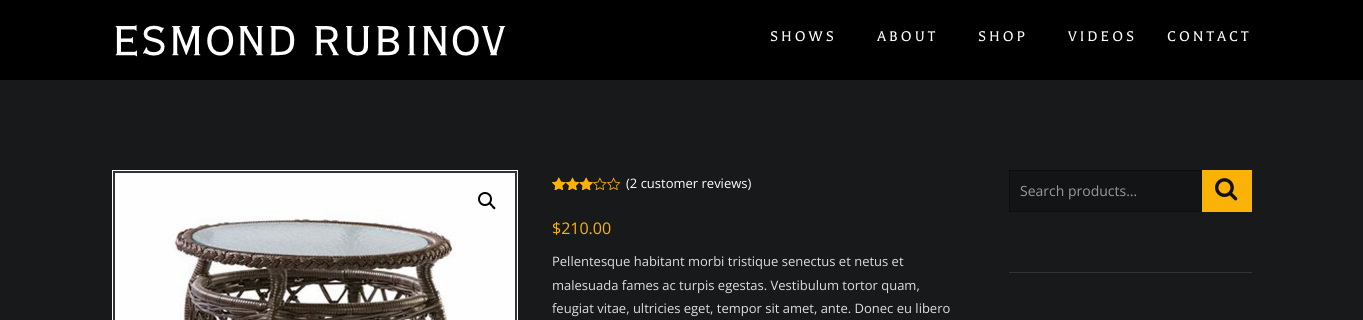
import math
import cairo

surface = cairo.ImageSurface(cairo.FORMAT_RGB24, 1363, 320)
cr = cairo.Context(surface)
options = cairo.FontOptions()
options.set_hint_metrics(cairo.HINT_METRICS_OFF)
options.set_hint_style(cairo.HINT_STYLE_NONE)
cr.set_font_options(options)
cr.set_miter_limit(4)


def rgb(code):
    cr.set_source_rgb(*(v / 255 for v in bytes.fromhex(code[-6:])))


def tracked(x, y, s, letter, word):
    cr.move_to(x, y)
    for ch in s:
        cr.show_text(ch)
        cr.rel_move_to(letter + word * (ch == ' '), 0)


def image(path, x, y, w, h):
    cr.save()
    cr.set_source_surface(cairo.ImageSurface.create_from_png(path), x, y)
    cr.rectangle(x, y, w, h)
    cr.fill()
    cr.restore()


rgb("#000000")
cr.paint()
image("img/1.png", 115, 25, 391, 32)
rgb("#18191b")
cr.rectangle(0, 80, 1363, 240)
cr.fill()
rgb("#333333")
cr.rectangle(112.5, 170.5, 405, 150)
cr.fill_preserve()
rgb("#ffffff")
cr.set_line_width(1)
cr.stroke()
image("img/2.png", 115, 173, 400, 147)
cr.arc(485, 199, 6, 0, 2 * math.pi)
rgb("#000000")
cr.set_line_width(2)
cr.stroke()
cr.new_path()
cr.move_to(489.5, 203)
cr.curve_to(490.5, 202, 492.5, 204.5, 493, 205.5)
cr.curve_to(493.5, 206, 496.5, 207.5, 495, 209)
cr.curve_to(494, 210, 492, 207.5, 491.5, 206.5)
cr.curve_to(491, 206, 488.5, 204.5, 489.5, 203)
cr.close_path()
cr.fill()
image("img/3.png", 552, 177, 69, 13)
image("img/4.png", 552, 177, 42, 13)
image("img/5.png", 552, 177, 7, 13)
for x, y, w, h, color in [
    (1009, 272, 243, 1, "#333333"),
    (1010, 172, 191, 39, "#131416"),
    (1010, 171, 191, 1, "#121314"),
]:
    rgb(color)
    cr.rectangle(x, y, w, h)
    cr.fill()
cr.rectangle(1009.5, 170.5, 192, 41)
rgb("#0d0e0f")
cr.set_line_width(1)
cr.stroke()
rgb("#fab207")
cr.rectangle(1202, 170, 50, 42)
cr.fill()
image("img/6.png", 1215, 178, 23, 23)
cr.select_font_face("Balthazar")
cr.set_font_size(16)
rgb("#ffffff")
for x, y, s in [
    (770, 41, "SHOWS"),
    (877, 41, "ABOUT"),
    (978, 41, "SHOP"),
    (1068, 41, "VIDEOS"),
    (1167, 41, "CONTACT"),
]:
    tracked(x, y, s, 3, 0)
cr.select_font_face("Open Sans")
cr.set_font_size(13)
cr.move_to(626, 188)
cr.show_text("(2 customer reviews)")
cr.set_font_size(16)
rgb("#fab207")
cr.move_to(552, 234)
cr.show_text("$210.00")
cr.set_font_size(13)
rgb("#dddddd")
for x, y, s in [
    (552, 266, "Pellentesque habitant morbi tristique senectus et netus et"),
    (552, 290, "malesuada fames ac turpis egestas. Vestibulum tortor quam,"),
    (552, 313, "feugiat vitae, ultricies eget, tempor sit amet, ante. Donec eu libero"),
]:
    cr.move_to(x, y)
    cr.show_text(s)
cr.set_font_size(14)
rgb("#999999")
cr.move_to(1020, 196)
cr.show_text("Search products…")
surface.write_to_png("page.png")
